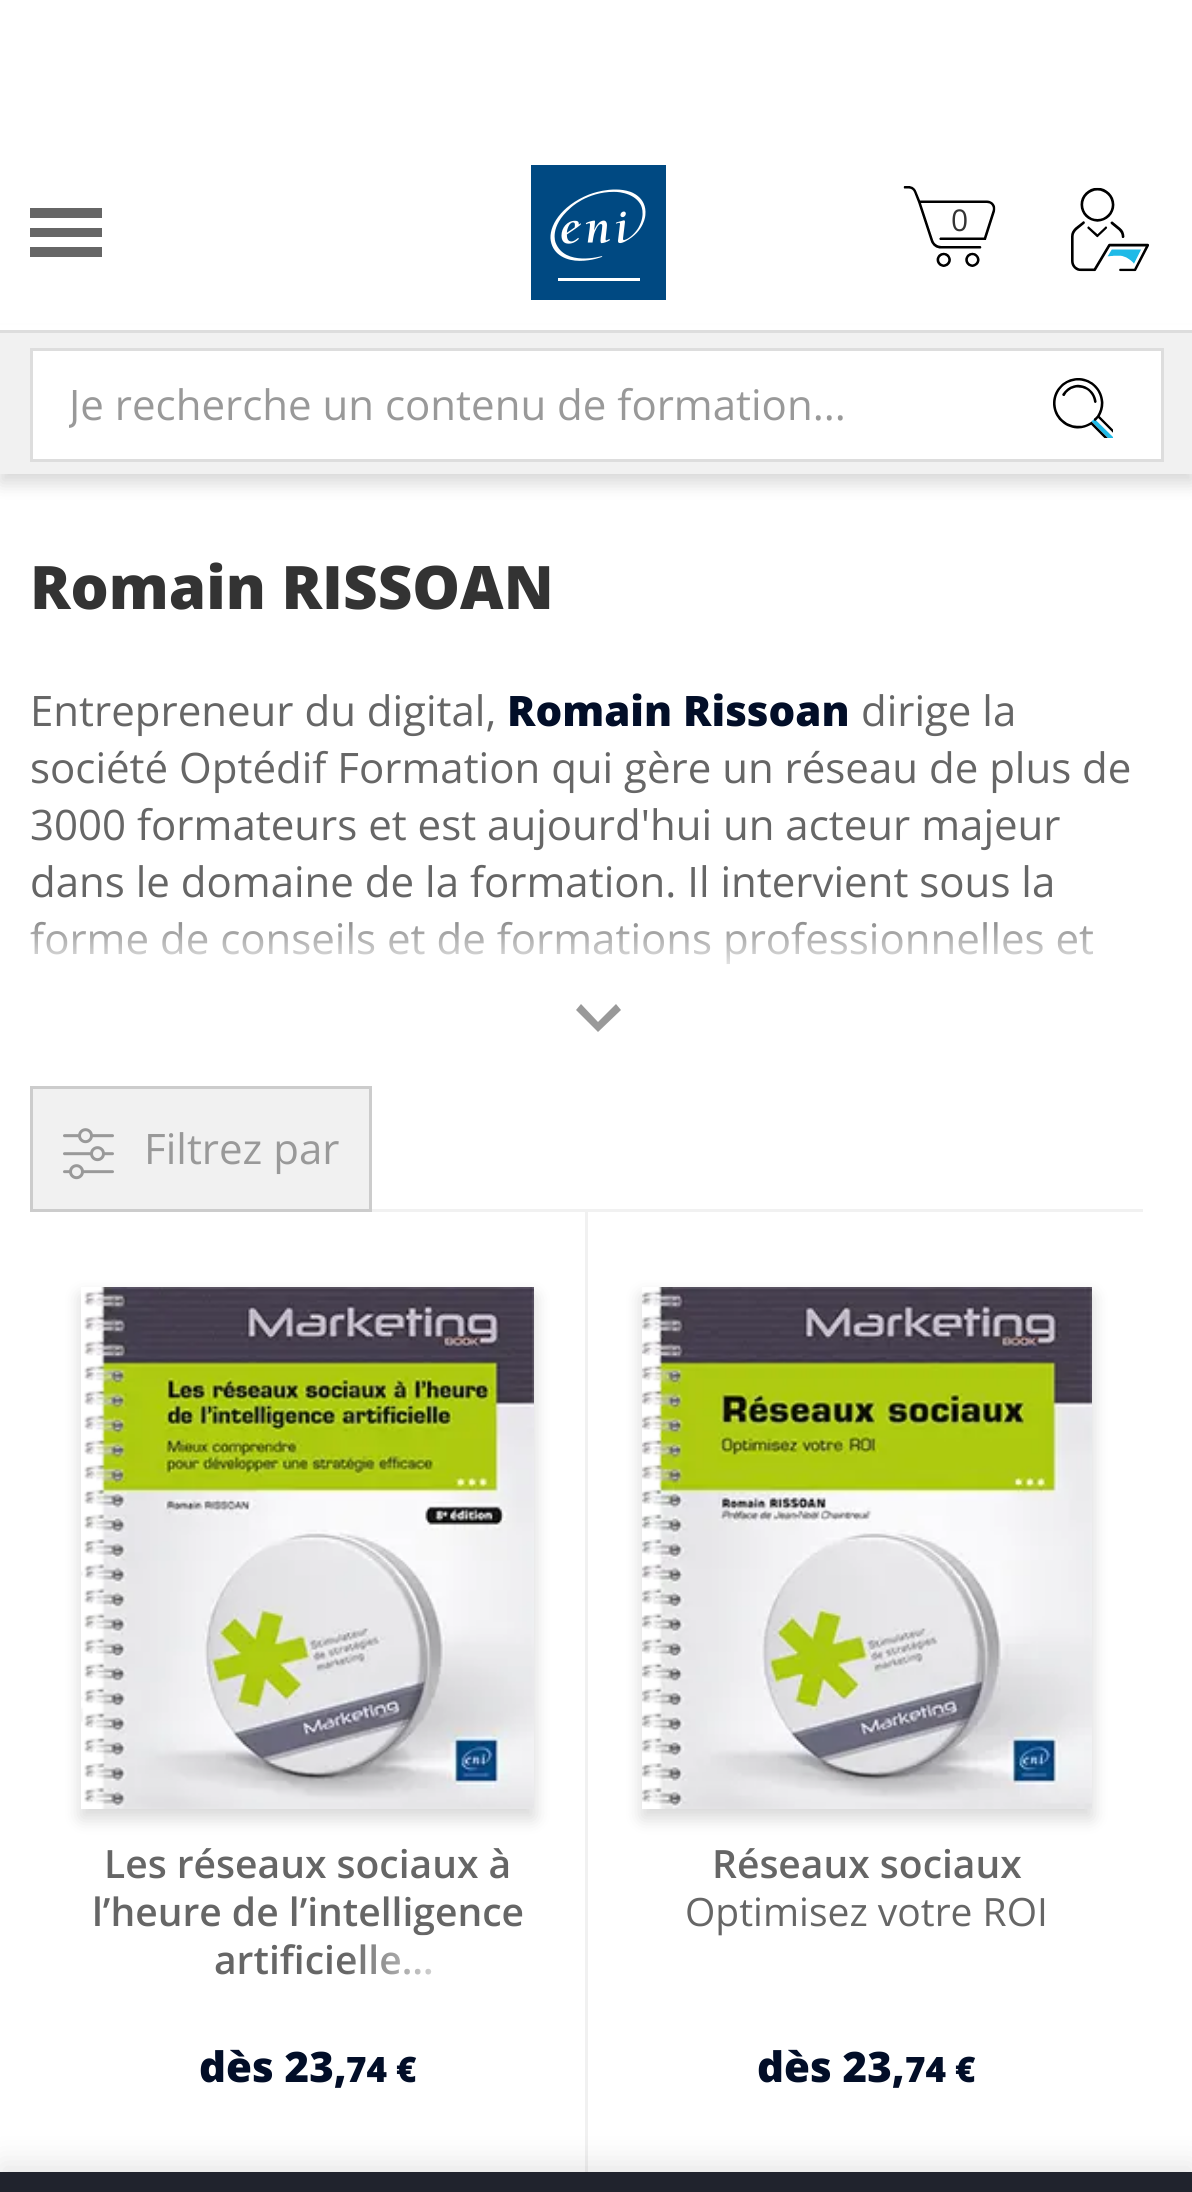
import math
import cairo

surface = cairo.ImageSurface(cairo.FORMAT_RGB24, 1192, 2192)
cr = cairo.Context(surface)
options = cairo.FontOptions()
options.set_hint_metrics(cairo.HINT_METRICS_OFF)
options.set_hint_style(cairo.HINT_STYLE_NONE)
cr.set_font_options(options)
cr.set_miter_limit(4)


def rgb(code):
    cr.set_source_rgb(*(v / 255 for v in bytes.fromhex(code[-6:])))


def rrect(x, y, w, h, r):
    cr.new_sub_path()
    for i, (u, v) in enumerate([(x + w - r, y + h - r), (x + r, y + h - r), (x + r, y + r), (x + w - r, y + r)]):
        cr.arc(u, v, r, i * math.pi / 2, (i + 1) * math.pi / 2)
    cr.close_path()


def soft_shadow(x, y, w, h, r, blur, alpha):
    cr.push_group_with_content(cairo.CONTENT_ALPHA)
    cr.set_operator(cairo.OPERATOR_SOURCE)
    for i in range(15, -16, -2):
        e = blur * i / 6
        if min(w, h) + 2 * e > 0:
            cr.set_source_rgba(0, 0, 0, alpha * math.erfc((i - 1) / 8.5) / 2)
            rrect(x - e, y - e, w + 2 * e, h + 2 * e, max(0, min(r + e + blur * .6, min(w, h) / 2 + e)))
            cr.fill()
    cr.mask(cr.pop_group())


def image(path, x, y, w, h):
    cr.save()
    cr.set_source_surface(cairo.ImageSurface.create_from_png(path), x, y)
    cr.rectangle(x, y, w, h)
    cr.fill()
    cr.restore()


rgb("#ffffff")
cr.paint()
rgb("#666666")
cr.new_path()
cr.move_to(30, 208)
cr.line_to(102, 208)
cr.line_to(102, 218)
cr.line_to(30, 218)
cr.close_path()
cr.move_to(30, 228)
cr.line_to(102, 228)
cr.line_to(102, 237)
cr.line_to(30, 237)
cr.close_path()
cr.move_to(30, 247)
cr.line_to(102, 247)
cr.line_to(102, 257)
cr.line_to(30, 257)
cr.close_path()
cr.fill()
image("img/1.png", 531, 165, 135, 135)
image("img/2.png", 903, 186, 93, 81)
image("img/3.png", 1071, 187, 78, 85)
rgb("#000000")
soft_shadow(0, 339, 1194, 144, 0, 9, 0.16)
for x, y, w, h, color in [
    (0, 325, 1192, 5, "#ffffff"),
    (0, 333, 1192, 141, "#f1f1f1"),
    (0, 330, 1192, 3, "#dddddd"),
]:
    rgb(color)
    cr.rectangle(x, y, w, h)
    cr.fill()
rgb("#ffffff")
cr.rectangle(31.5, 349.5, 1131, 111)
cr.fill_preserve()
rgb("#dddddd")
cr.set_line_width(3)
cr.stroke()
image("img/4.png", 1053, 378, 60, 60)
rgb("#999999")
cr.new_path()
cr.move_to(581, 1004)
cr.line_to(598, 1022)
cr.line_to(616, 1004)
cr.line_to(621, 1010)
cr.line_to(598, 1032)
cr.line_to(576, 1010)
cr.close_path()
cr.fill()
rgb("#f1f1f1")
cr.rectangle(31.5, 1087.5, 339, 123)
cr.fill_preserve()
rgb("#cccccc")
cr.stroke()
image("img/5.png", 63, 1128, 51, 52)
rgb("#f1f1f1")
cr.rectangle(372, 1209, 771, 3)
cr.fill()
cr.rectangle(585, 1209, 3, 963)
cr.fill()
cr.save()
cr.set_fill_rule(cairo.FILL_RULE_EVEN_ODD)
cr.new_path()
cr.move_to(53, 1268)
cr.line_to(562, 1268)
cr.line_to(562, 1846)
cr.line_to(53, 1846)
cr.close_path()
cr.move_to(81, 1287)
cr.line_to(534, 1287)
cr.line_to(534, 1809)
cr.line_to(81, 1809)
cr.close_path()
cr.clip()
rgb("#000000")
soft_shadow(81, 1296, 453, 522, 0, 9, 0.16)
cr.restore()
image("img/6.png", 81, 1287, 453, 522)
cr.save()
cr.set_fill_rule(cairo.FILL_RULE_EVEN_ODD)
cr.new_path()
cr.move_to(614, 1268)
cr.line_to(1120, 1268)
cr.line_to(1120, 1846)
cr.line_to(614, 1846)
cr.close_path()
cr.move_to(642, 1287)
cr.line_to(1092, 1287)
cr.line_to(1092, 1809)
cr.line_to(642, 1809)
cr.close_path()
cr.clip()
rgb("#000000")
soft_shadow(642, 1296, 450, 522, 0, 9, 0.16)
cr.restore()
image("img/7.png", 642, 1287, 450, 522)
rgb("#000000")
soft_shadow(0, 2163, 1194, 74, 0, 15, 0.1)
rgb("#20232d")
cr.rectangle(0, 2172, 1192, 20)
cr.fill()
cr.select_font_face("Open Sans")
cr.set_font_size(30)
rgb("#333333")
cr.move_to(951, 231)
cr.show_text("0")
cr.save()
cr.rectangle(69, 375, 936, 57)
cr.clip()
cr.set_font_size(42)
rgb("#999999")
cr.move_to(69, 420)
cr.show_text("Je recherche un contenu de formation...")
cr.restore()
cr.select_font_face("Open Sans ExtraBold")
cr.set_font_size(60)
cr.move_to(30, 609)
cr.show_text("Romain RISSOAN")
cr.select_font_face("Open Sans")
cr.set_font_size(42)
rgb("#666666")
cr.move_to(30, 726)
cr.show_text("Entrepreneur du digital,")
cr.select_font_face("Open Sans ExtraBold")
rgb("#020e28")
cr.move_to(507, 726)
cr.show_text("Romain Rissoan")
cr.select_font_face("Open Sans")
rgb("#666666")
for x, y, s in [
    (861, 726, "dirige la"),
    (30, 783, "société Optédif Formation qui gère un réseau de plus de"),
    (30, 840, "3000 formateurs et est aujourd'hui un acteur majeur"),
    (30, 897, "dans le domaine de la formation. Il intervient sous la"),
    (30, 954, "forme de conseils et de formations professionnelles et"),
]:
    cr.move_to(x, y)
    cr.show_text(s)
gradient = cairo.LinearGradient(597, 906, 597, 1056)
gradient.add_color_stop_rgba(0, 1, 1, 1, 0)
gradient.add_color_stop_rgba(0.1, 1, 1, 1, 0.25)
gradient.add_color_stop_rgba(0.3, 1, 1, 1, 0.65)
gradient.add_color_stop_rgba(0.5, 1, 1, 1, 1)
cr.set_source(gradient)
cr.rectangle(30, 921, 1064, 44)
cr.fill()
rgb("#999999")
cr.move_to(144, 1164)
cr.show_text("Filtrez par")
cr.select_font_face("Open Sans SemiBold")
cr.set_font_size(39)
rgb("#666666")
for x, y, s in [
    (104, 1878, "Les réseaux sociaux à"),
    (92, 1926, "l’heure de l’intelligence"),
    (214, 1974, "artificielle…"),
]:
    cr.move_to(x, y)
    cr.show_text(s)
gradient = cairo.LinearGradient(345, 1962, 555, 1962)
gradient.add_color_stop_rgba(0, 1, 1, 1, 0)
gradient.add_color_stop_rgba(0.6, 1, 1, 1, 1)
cr.set_source(gradient)
cr.rectangle(348, 1935, 83, 40)
cr.fill()
cr.select_font_face("Open Sans ExtraBold")
cr.set_font_size(42)
rgb("#020e28")
cr.move_to(199, 2082)
cr.show_text("dès 23,")
cr.set_font_size(35)
cr.move_to(346, 2082)
cr.show_text("74 €")
cr.select_font_face("Open Sans SemiBold")
cr.set_font_size(39)
rgb("#666666")
cr.move_to(712, 1878)
cr.show_text("Réseaux sociaux")
cr.select_font_face("Open Sans")
cr.move_to(685, 1926)
cr.show_text("Optimisez votre ROI")
cr.select_font_face("Open Sans ExtraBold")
cr.set_font_size(42)
rgb("#020e28")
cr.move_to(757, 2082)
cr.show_text("dès 23,")
cr.set_font_size(35)
cr.move_to(905, 2082)
cr.show_text("74 €")
surface.write_to_png("page.png")
